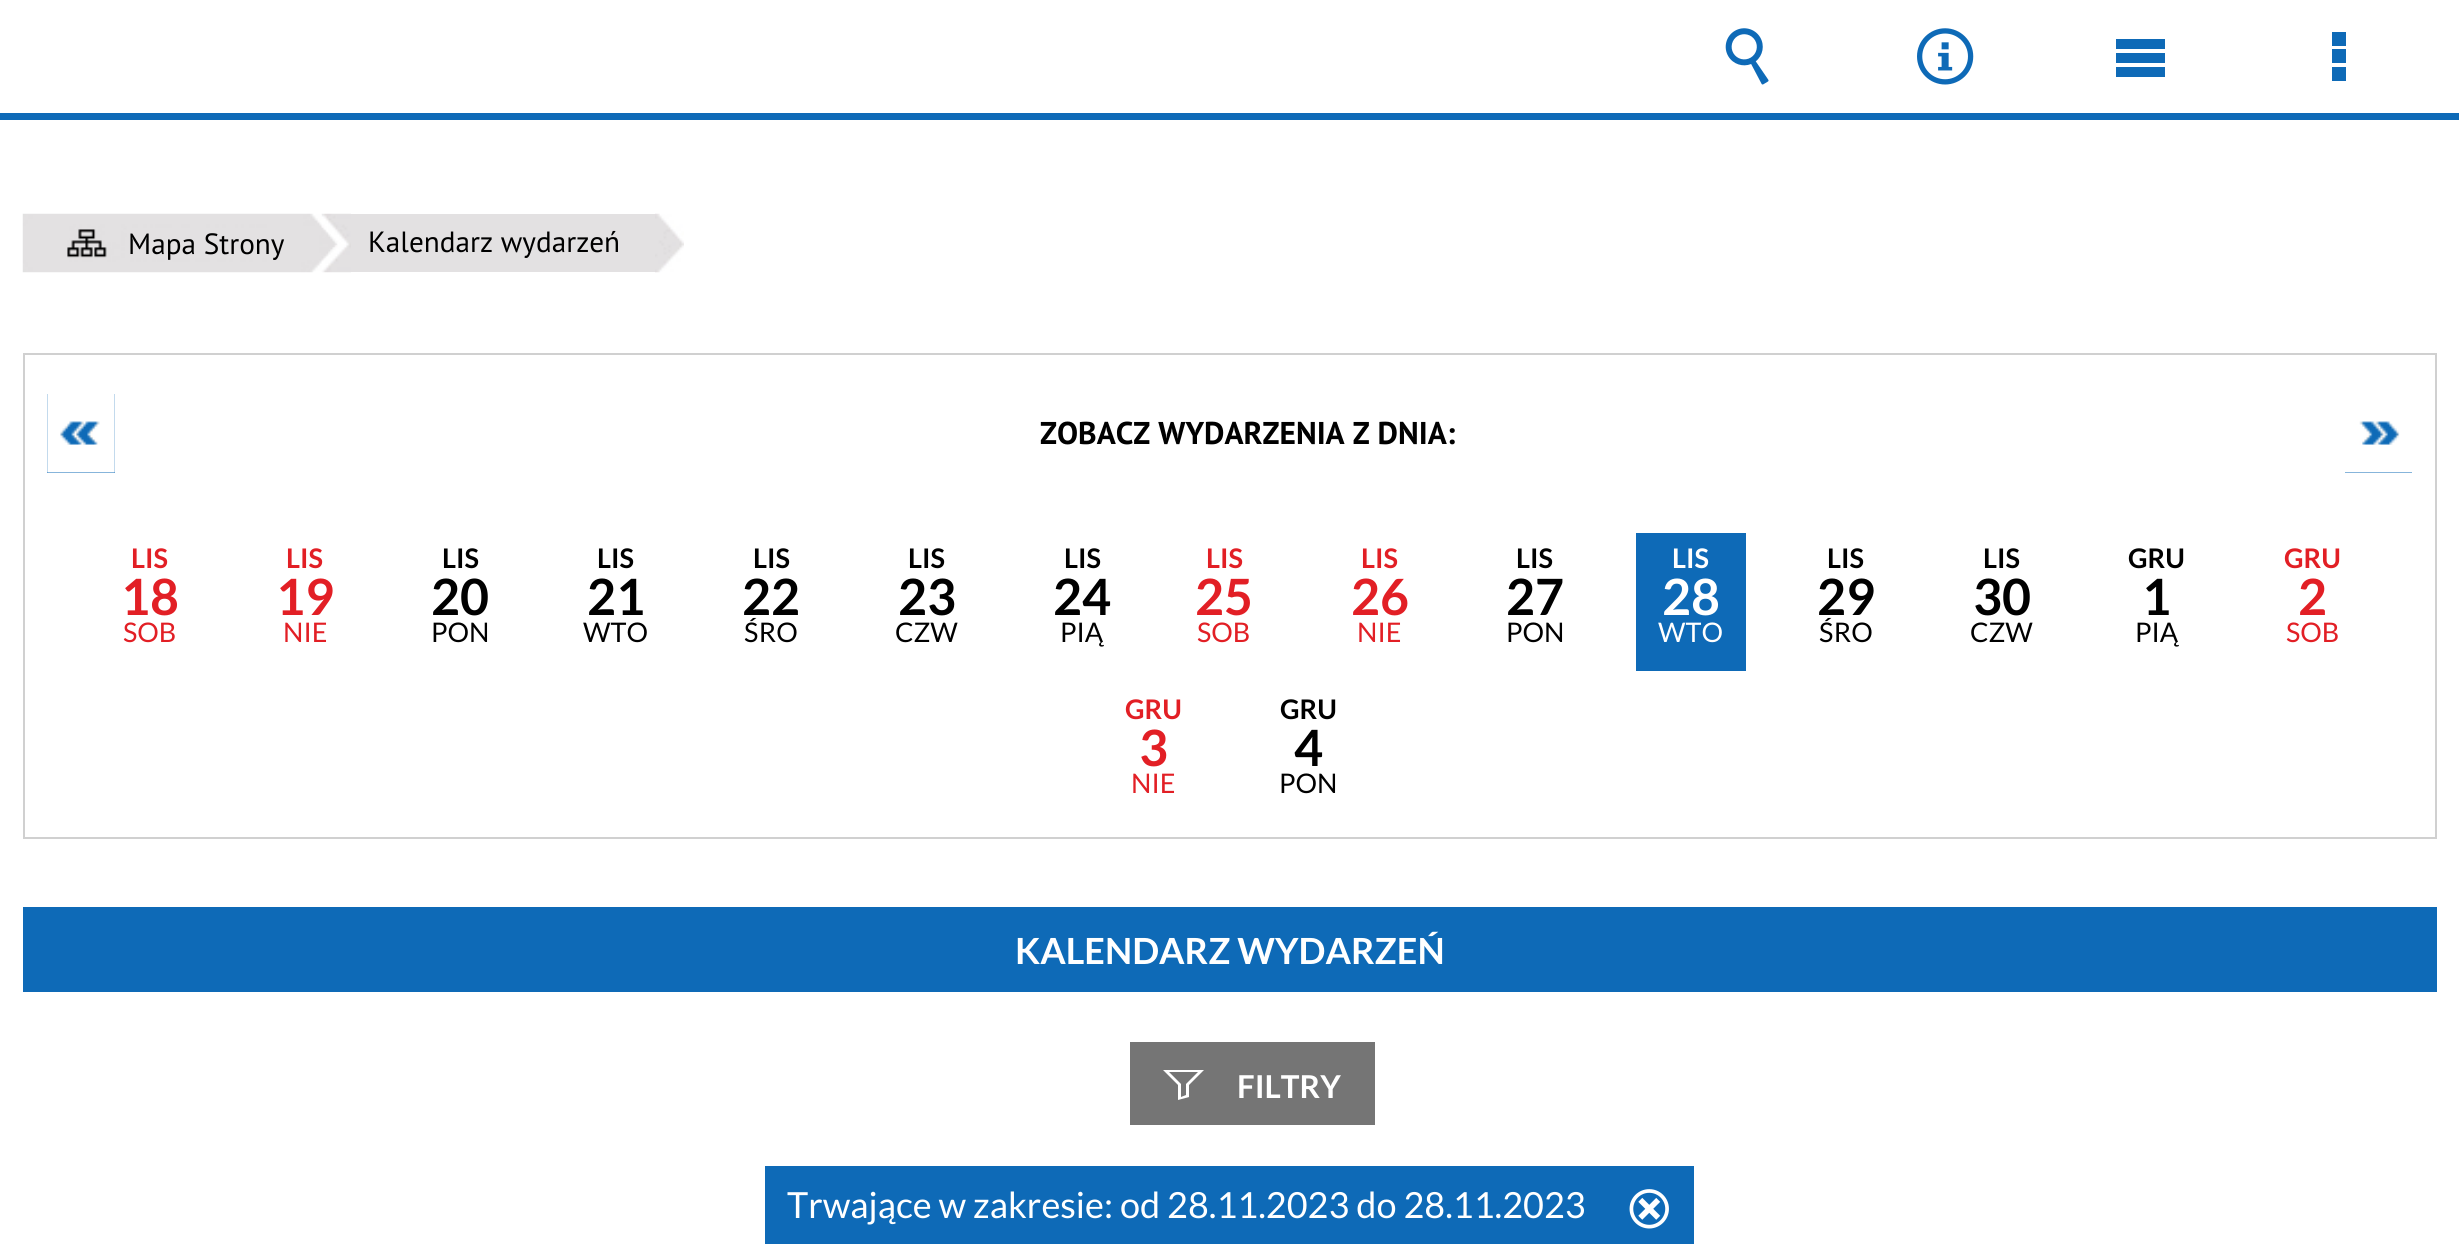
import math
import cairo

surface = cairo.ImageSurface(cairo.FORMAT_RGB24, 2459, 1249)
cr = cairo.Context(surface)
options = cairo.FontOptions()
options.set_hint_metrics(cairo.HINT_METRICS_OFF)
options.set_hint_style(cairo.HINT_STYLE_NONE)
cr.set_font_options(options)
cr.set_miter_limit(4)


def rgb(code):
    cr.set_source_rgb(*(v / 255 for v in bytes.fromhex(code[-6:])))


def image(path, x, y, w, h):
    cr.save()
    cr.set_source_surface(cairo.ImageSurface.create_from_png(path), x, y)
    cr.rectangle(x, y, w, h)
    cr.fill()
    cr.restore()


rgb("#ffffff")
cr.paint()
rgb("#0e6ab7")
cr.rectangle(0, 113, 2459, 7)
cr.fill()
image("img/1.png", 1725, 28, 44, 57)
image("img/2.png", 1917, 28, 57, 57)
cr.new_path()
cr.move_to(2116, 39)
cr.line_to(2116, 49)
cr.line_to(2165, 49)
cr.line_to(2165, 39)
cr.close_path()
cr.move_to(2116, 53)
cr.line_to(2116, 63)
cr.line_to(2165, 63)
cr.line_to(2165, 53)
cr.close_path()
cr.move_to(2116, 67)
cr.line_to(2116, 77)
cr.line_to(2165, 77)
cr.line_to(2165, 67)
cr.close_path()
cr.fill()
cr.new_path()
cr.move_to(2332, 32)
cr.line_to(2332, 46)
cr.line_to(2346, 46)
cr.line_to(2346, 32)
cr.close_path()
cr.move_to(2332, 49)
cr.line_to(2332, 63)
cr.line_to(2346, 63)
cr.line_to(2346, 49)
cr.close_path()
cr.move_to(2332, 67)
cr.line_to(2332, 81)
cr.line_to(2346, 81)
cr.line_to(2346, 67)
cr.close_path()
cr.fill()
image("img/3.png", 22, 213, 327, 60)
rgb("#e3e1e2")
cr.rectangle(351, 214, 304, 58)
cr.fill()
image("img/4.png", 321, 213, 30, 60)
image("img/5.png", 655, 213, 29, 60)
cr.rectangle(24, 354, 2412, 484)
rgb("#d0d0d0")
cr.stroke()
rgb("#0e6ab7")
cr.rectangle(47, 394, 68, 79)
cr.fill()
image("img/6.png", 47, 394, 68, 79)
cr.rectangle(2345, 421, 67, 52)
cr.fill()
image("img/7.png", 2345, 394, 67, 79)
for x, y, w, h, color in [
    (1636, 533, 110, 138, "#0e6ab7"),
    (23, 907, 2414, 85, "#0e6ab7"),
    (1130, 1042, 245, 83, "#757575"),
]:
    rgb(color)
    cr.rectangle(x, y, w, h)
    cr.fill()
rgb("#ffffff")
cr.new_path()
cr.move_to(1198, 1072)
cr.line_to(1169, 1072)
cr.line_to(1181, 1084)
cr.line_to(1181, 1097)
cr.line_to(1186, 1095)
cr.line_to(1186, 1084)
cr.close_path()
cr.move_to(1204, 1070)
cr.line_to(1189, 1085)
cr.line_to(1189, 1097)
cr.line_to(1178, 1100)
cr.line_to(1178, 1085)
cr.line_to(1163, 1070)
cr.close_path()
cr.fill()
rgb("#0e6ab7")
cr.rectangle(765, 1166, 929, 78)
cr.fill()
image("img/8.png", 1629, 1189, 40, 40)
cr.select_font_face("PT Sans")
cr.set_font_size(29.25)
rgb("#000000")
cr.move_to(128, 254)
cr.show_text("Mapa Strony")
cr.move_to(368, 252)
cr.show_text("Kalendarz wydarzeń")
cr.select_font_face("PT Sans", cairo.FONT_SLANT_NORMAL, cairo.FONT_WEIGHT_BOLD)
cr.set_font_size(31.5)
cr.move_to(1040, 444)
cr.show_text("ZOBACZ WYDARZENIA Z DNIA:")
cr.select_font_face("Lato", cairo.FONT_SLANT_NORMAL, cairo.FONT_WEIGHT_BOLD)
cr.set_font_size(27)
rgb("#e21f25")
cr.move_to(131, 568)
cr.show_text("LIS")
cr.set_font_size(50)
cr.move_to(121, 615)
cr.show_text("18")
cr.select_font_face("Lato")
cr.set_font_size(27)
cr.move_to(123, 642)
cr.show_text("SOB")
cr.select_font_face("Lato", cairo.FONT_SLANT_NORMAL, cairo.FONT_WEIGHT_BOLD)
cr.move_to(286, 568)
cr.show_text("LIS")
cr.set_font_size(50)
cr.move_to(276, 615)
cr.show_text("19")
cr.select_font_face("Lato")
cr.set_font_size(27)
cr.move_to(283, 642)
cr.show_text("NIE")
cr.select_font_face("Lato", cairo.FONT_SLANT_NORMAL, cairo.FONT_WEIGHT_BOLD)
rgb("#000000")
cr.move_to(442, 568)
cr.show_text("LIS")
cr.set_font_size(50)
cr.move_to(431, 615)
cr.show_text("20")
cr.select_font_face("Lato")
cr.set_font_size(27)
cr.move_to(431, 642)
cr.show_text("PON")
cr.select_font_face("Lato", cairo.FONT_SLANT_NORMAL, cairo.FONT_WEIGHT_BOLD)
cr.move_to(597, 568)
cr.show_text("LIS")
cr.set_font_size(50)
cr.move_to(587, 615)
cr.show_text("21")
cr.select_font_face("Lato")
cr.set_font_size(27)
cr.move_to(583, 642)
cr.show_text("WTO")
cr.select_font_face("Lato", cairo.FONT_SLANT_NORMAL, cairo.FONT_WEIGHT_BOLD)
cr.move_to(753, 568)
cr.show_text("LIS")
cr.set_font_size(50)
cr.move_to(742, 615)
cr.show_text("22")
cr.select_font_face("Lato")
cr.set_font_size(27)
cr.move_to(744, 642)
cr.show_text("ŚRO")
cr.select_font_face("Lato", cairo.FONT_SLANT_NORMAL, cairo.FONT_WEIGHT_BOLD)
cr.move_to(908, 568)
cr.show_text("LIS")
cr.set_font_size(50)
cr.move_to(898, 615)
cr.show_text("23")
cr.select_font_face("Lato")
cr.set_font_size(27)
cr.move_to(895, 642)
cr.show_text("CZW")
cr.select_font_face("Lato", cairo.FONT_SLANT_NORMAL, cairo.FONT_WEIGHT_BOLD)
cr.move_to(1064, 568)
cr.show_text("LIS")
cr.set_font_size(50)
cr.move_to(1053, 615)
cr.show_text("24")
cr.select_font_face("Lato")
cr.set_font_size(27)
cr.move_to(1060, 642)
cr.show_text("PIĄ")
cr.select_font_face("Lato", cairo.FONT_SLANT_NORMAL, cairo.FONT_WEIGHT_BOLD)
rgb("#e21f25")
cr.move_to(1206, 568)
cr.show_text("LIS")
cr.set_font_size(50)
cr.move_to(1195, 615)
cr.show_text("25")
cr.select_font_face("Lato")
cr.set_font_size(27)
cr.move_to(1197, 642)
cr.show_text("SOB")
cr.select_font_face("Lato", cairo.FONT_SLANT_NORMAL, cairo.FONT_WEIGHT_BOLD)
cr.move_to(1361, 568)
cr.show_text("LIS")
cr.set_font_size(50)
cr.move_to(1351, 615)
cr.show_text("26")
cr.select_font_face("Lato")
cr.set_font_size(27)
cr.move_to(1357, 642)
cr.show_text("NIE")
cr.select_font_face("Lato", cairo.FONT_SLANT_NORMAL, cairo.FONT_WEIGHT_BOLD)
rgb("#000000")
cr.move_to(1516, 568)
cr.show_text("LIS")
cr.set_font_size(50)
cr.move_to(1506, 615)
cr.show_text("27")
cr.select_font_face("Lato")
cr.set_font_size(27)
cr.move_to(1506, 642)
cr.show_text("PON")
cr.select_font_face("Lato", cairo.FONT_SLANT_NORMAL, cairo.FONT_WEIGHT_BOLD)
rgb("#ffffff")
cr.move_to(1672, 568)
cr.show_text("LIS")
cr.set_font_size(50)
cr.move_to(1662, 615)
cr.show_text("28")
cr.select_font_face("Lato")
cr.set_font_size(27)
cr.move_to(1658, 642)
cr.show_text("WTO")
cr.select_font_face("Lato", cairo.FONT_SLANT_NORMAL, cairo.FONT_WEIGHT_BOLD)
rgb("#000000")
cr.move_to(1827, 568)
cr.show_text("LIS")
cr.set_font_size(50)
cr.move_to(1817, 615)
cr.show_text("29")
cr.select_font_face("Lato")
cr.set_font_size(27)
cr.move_to(1819, 642)
cr.show_text("ŚRO")
cr.select_font_face("Lato", cairo.FONT_SLANT_NORMAL, cairo.FONT_WEIGHT_BOLD)
cr.move_to(1983, 568)
cr.show_text("LIS")
cr.set_font_size(50)
cr.move_to(1973, 615)
cr.show_text("30")
cr.select_font_face("Lato")
cr.set_font_size(27)
cr.move_to(1970, 642)
cr.show_text("CZW")
cr.select_font_face("Lato", cairo.FONT_SLANT_NORMAL, cairo.FONT_WEIGHT_BOLD)
cr.move_to(2128, 568)
cr.show_text("GRU")
cr.set_font_size(50)
cr.move_to(2142, 615)
cr.show_text("1")
cr.select_font_face("Lato")
cr.set_font_size(27)
cr.move_to(2135, 642)
cr.show_text("PIĄ")
cr.select_font_face("Lato", cairo.FONT_SLANT_NORMAL, cairo.FONT_WEIGHT_BOLD)
rgb("#e21f25")
cr.move_to(2284, 568)
cr.show_text("GRU")
cr.set_font_size(50)
cr.move_to(2298, 615)
cr.show_text("2")
cr.select_font_face("Lato")
cr.set_font_size(27)
cr.move_to(2286, 642)
cr.show_text("SOB")
cr.select_font_face("Lato", cairo.FONT_SLANT_NORMAL, cairo.FONT_WEIGHT_BOLD)
cr.move_to(1125, 719)
cr.show_text("GRU")
cr.set_font_size(50)
cr.move_to(1139, 766)
cr.show_text("3")
cr.select_font_face("Lato")
cr.set_font_size(27)
cr.move_to(1131, 793)
cr.show_text("NIE")
cr.select_font_face("Lato", cairo.FONT_SLANT_NORMAL, cairo.FONT_WEIGHT_BOLD)
rgb("#000000")
cr.move_to(1280, 719)
cr.show_text("GRU")
cr.set_font_size(50)
cr.move_to(1294, 766)
cr.show_text("4")
cr.select_font_face("Lato")
cr.set_font_size(27)
cr.move_to(1279, 793)
cr.show_text("PON")
cr.select_font_face("Lato", cairo.FONT_SLANT_NORMAL, cairo.FONT_WEIGHT_BOLD)
cr.set_font_size(36)
rgb("#ffffff")
cr.move_to(1015, 964)
cr.show_text("KALENDARZ WYDARZEŃ")
cr.set_font_size(31.5)
cr.move_to(1237, 1098)
cr.show_text("FILTRY")
cr.select_font_face("Lato")
cr.set_font_size(36)
cr.move_to(787, 1218)
cr.show_text("Trwające w zakresie: od 28.11.2023 do 28.11.2023")
surface.write_to_png("page.png")
